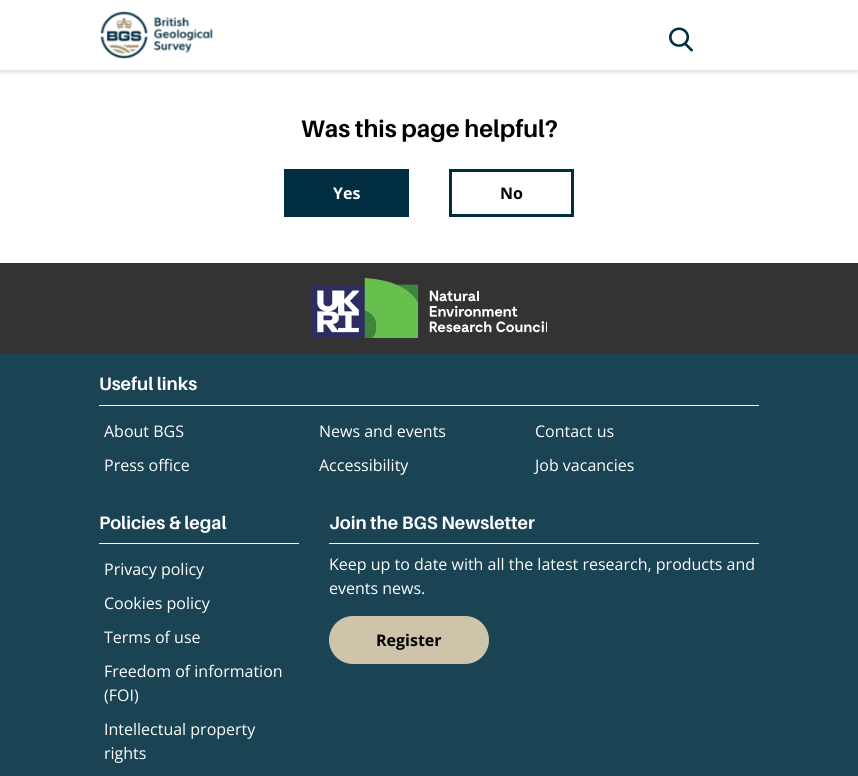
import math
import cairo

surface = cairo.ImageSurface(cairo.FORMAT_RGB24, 858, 776)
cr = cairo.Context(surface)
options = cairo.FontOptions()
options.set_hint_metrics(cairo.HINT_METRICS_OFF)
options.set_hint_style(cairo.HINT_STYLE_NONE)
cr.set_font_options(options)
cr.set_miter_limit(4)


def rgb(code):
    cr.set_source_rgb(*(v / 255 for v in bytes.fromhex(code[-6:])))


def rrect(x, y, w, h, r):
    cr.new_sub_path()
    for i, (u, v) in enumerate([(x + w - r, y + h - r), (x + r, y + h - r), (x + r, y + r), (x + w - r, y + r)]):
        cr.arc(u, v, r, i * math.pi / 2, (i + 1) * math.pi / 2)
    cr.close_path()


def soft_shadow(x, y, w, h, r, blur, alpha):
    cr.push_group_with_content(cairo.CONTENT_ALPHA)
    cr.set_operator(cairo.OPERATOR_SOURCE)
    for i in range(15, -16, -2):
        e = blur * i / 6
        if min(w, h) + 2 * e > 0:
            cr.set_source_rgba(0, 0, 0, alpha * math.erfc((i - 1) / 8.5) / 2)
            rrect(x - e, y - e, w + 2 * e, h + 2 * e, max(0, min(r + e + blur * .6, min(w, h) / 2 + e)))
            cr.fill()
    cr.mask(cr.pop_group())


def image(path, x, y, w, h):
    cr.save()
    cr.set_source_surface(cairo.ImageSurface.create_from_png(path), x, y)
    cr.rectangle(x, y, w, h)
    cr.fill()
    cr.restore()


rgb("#ffffff")
cr.paint()
rgb("#b7b7b7")
soft_shadow(0, 2, 858, 70, 0, 2, 0.5)
rgb("#ffffff")
cr.rectangle(0, 0, 858, 70)
cr.fill()
image("img/1.png", 100, 11, 113, 48)
image("img/2.png", 669, 27, 24, 25)
rgb("#002e40")
cr.rectangle(284, 169, 125, 48)
cr.fill()
cr.rectangle(450.5, 170.5, 122, 45)
cr.set_line_width(3)
cr.stroke()
rgb("#333333")
cr.rectangle(0, 263, 858, 90)
cr.fill()
image("img/3.png", 311, 278, 236, 60)
for x, y, w, h, color in [
    (0, 353, 858, 423, "#1a4353"),
    (99, 405, 660, 1, "#ffffff"),
    (99, 543, 200, 1, "#ffffff"),
    (329, 543, 430, 1, "#ffffff"),
]:
    rgb(color)
    cr.rectangle(x, y, w, h)
    cr.fill()
rgb("#cec4a9")
rrect(330.5, 617.5, 157, 45, 22.5)
cr.fill_preserve()
cr.stroke()
cr.select_font_face("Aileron", cairo.FONT_SLANT_NORMAL, cairo.FONT_WEIGHT_BOLD)
cr.set_font_size(24)
rgb("#000000")
cr.move_to(301, 137)
cr.show_text("Was this page helpful?")
cr.select_font_face("Open Sans", cairo.FONT_SLANT_NORMAL, cairo.FONT_WEIGHT_BOLD)
cr.set_font_size(16)
rgb("#ffffff")
cr.move_to(333, 199)
cr.show_text("Yes")
rgb("#000000")
cr.move_to(500, 199)
cr.show_text("No")
cr.select_font_face("Aileron", cairo.FONT_SLANT_NORMAL, cairo.FONT_WEIGHT_BOLD)
cr.set_font_size(18)
rgb("#ffffff")
cr.move_to(99, 390)
cr.show_text("Useful links")
cr.select_font_face("Open Sans")
cr.set_font_size(16)
for x, y, s in [
    (104, 437, "About BGS"),
    (319, 437, "News and events"),
    (535, 437, "Contact us"),
    (104, 471, "Press office"),
    (319, 471, "Accessibility"),
    (535, 471, "Job vacancies"),
]:
    cr.move_to(x, y)
    cr.show_text(s)
cr.select_font_face("Aileron", cairo.FONT_SLANT_NORMAL, cairo.FONT_WEIGHT_BOLD)
cr.set_font_size(18)
cr.move_to(99, 529)
cr.show_text("Policies & legal")
cr.select_font_face("Open Sans")
cr.set_font_size(16)
for x, y, s in [
    (104, 575, "Privacy policy"),
    (104, 609, "Cookies policy"),
    (104, 643, "Terms of use"),
    (104, 677, "Freedom of information"),
    (104, 701, "(FOI)"),
    (104, 735, "Intellectual property"),
    (104, 759, "rights"),
]:
    cr.move_to(x, y)
    cr.show_text(s)
cr.select_font_face("Aileron", cairo.FONT_SLANT_NORMAL, cairo.FONT_WEIGHT_BOLD)
cr.set_font_size(18)
cr.move_to(329, 529)
cr.show_text("Join the BGS Newsletter")
cr.select_font_face("Open Sans")
cr.set_font_size(16)
cr.move_to(329, 570)
cr.show_text("Keep up to date with all the latest research, products and")
cr.move_to(329, 594)
cr.show_text("events news.")
cr.select_font_face("Open Sans", cairo.FONT_SLANT_NORMAL, cairo.FONT_WEIGHT_BOLD)
rgb("#000000")
cr.move_to(376, 646)
cr.show_text("Register")
surface.write_to_png("page.png")
